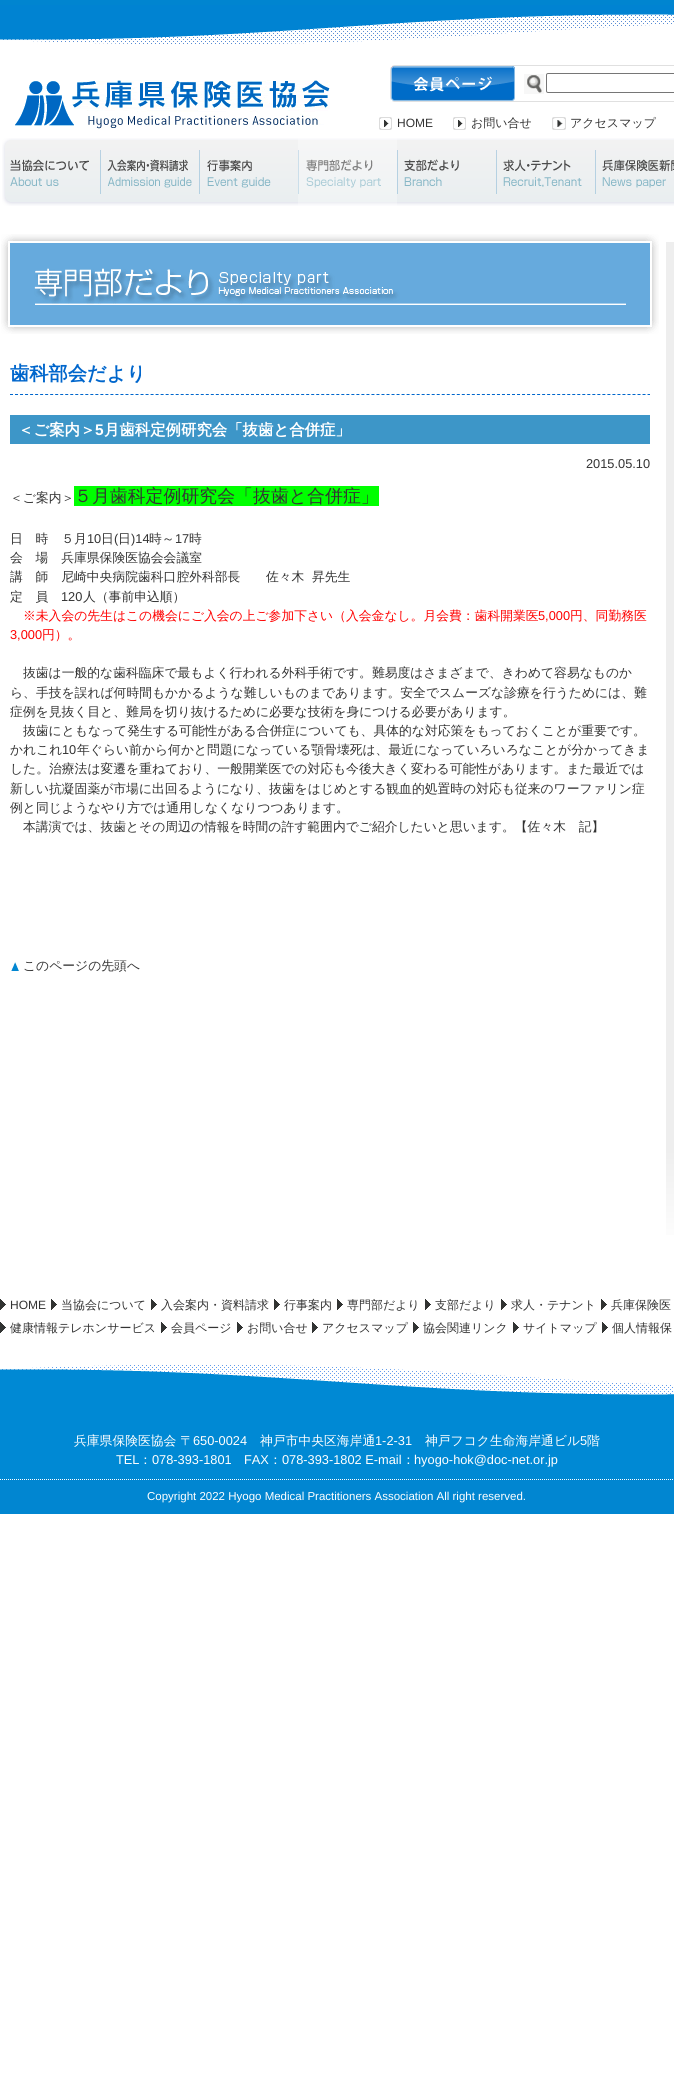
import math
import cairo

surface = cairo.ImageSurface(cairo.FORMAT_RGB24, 674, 2089)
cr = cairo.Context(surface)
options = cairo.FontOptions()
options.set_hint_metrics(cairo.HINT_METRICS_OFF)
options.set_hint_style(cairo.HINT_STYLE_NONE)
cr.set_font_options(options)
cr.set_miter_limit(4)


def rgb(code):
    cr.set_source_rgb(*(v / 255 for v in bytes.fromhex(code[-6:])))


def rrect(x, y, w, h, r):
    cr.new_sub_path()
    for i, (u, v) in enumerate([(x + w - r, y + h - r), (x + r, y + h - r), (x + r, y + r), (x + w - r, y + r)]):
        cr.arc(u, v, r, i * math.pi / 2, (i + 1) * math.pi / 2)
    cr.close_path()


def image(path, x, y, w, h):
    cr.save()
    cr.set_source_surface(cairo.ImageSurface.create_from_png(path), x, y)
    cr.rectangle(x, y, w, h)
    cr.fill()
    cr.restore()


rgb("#ffffff")
cr.paint()
image("img/1.png", 0, 5, 674, 39)
rgb("#0085d0")
cr.rectangle(0, 0, 674, 5)
cr.fill()
image("img/2.png", 15, 80, 315, 49)
rrect(390.5, 65.5, 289, 36, 4.5)
rgb("#e0e0e0")
cr.set_line_width(1)
cr.stroke()
image("img/3.png", 391, 66, 124, 35)
image("img/4.png", 524, 74, 20, 20)
rrect(546.5, 73.5, 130, 19, 1.5)
rgb("#767676")
cr.stroke()
image("img/5.png", 379, 117, 13, 13)
image("img/5.png", 453, 117, 13, 13)
image("img/6.png", 552, 117, 14, 13)
image("img/7.png", 2, 138, 98, 68)
image("img/8.png", 100, 138, 99, 68)
image("img/9.png", 199, 138, 99, 68)
image("img/10.png", 298, 138, 99, 68)
image("img/11.png", 397, 138, 99, 68)
image("img/12.png", 496, 138, 99, 68)
image("img/13.png", 595, 138, 79, 68)
image("img/14.png", 1, 234, 658, 100)
cr.new_path()
cr.move_to(10, 394.5)
cr.line_to(650, 394.5)
rgb("#0066cc")
cr.set_dash([3, 2.02])
cr.stroke()
rgb("#3d96c8")
cr.rectangle(10, 415, 640, 29)
cr.fill()
rgb("#00ff00")
cr.rectangle(74, 486, 305, 20)
cr.fill()
image("img/15.png", 11, 962, 8, 9)
gradient = cairo.LinearGradient(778, 242, 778, 1250)
gradient.add_color_stop_rgba(0.9, 0.933, 0.933, 0.933, 1)
gradient.add_color_stop_rgba(1, 1, 1, 1, 1)
cr.set_source(gradient)
cr.rectangle(666, 242, 8, 993)
cr.fill()
image("img/16.png", 0, 1299, 6, 11)
image("img/16.png", 51, 1299, 6, 11)
image("img/16.png", 151, 1299, 6, 11)
image("img/16.png", 274, 1299, 6, 11)
image("img/16.png", 337, 1299, 6, 11)
image("img/16.png", 425, 1299, 6, 11)
image("img/16.png", 501, 1299, 6, 11)
image("img/16.png", 601, 1299, 6, 11)
image("img/16.png", 0, 1322, 6, 11)
image("img/16.png", 161, 1322, 6, 11)
image("img/16.png", 237, 1322, 6, 11)
image("img/16.png", 312, 1322, 6, 11)
image("img/16.png", 413, 1322, 6, 11)
image("img/16.png", 513, 1322, 6, 11)
image("img/16.png", 602, 1322, 6, 11)
image("img/17.png", 0, 1365, 674, 56)
rgb("#0089d4")
cr.rectangle(0, 1421, 674, 58)
cr.fill()
rgb("#0186d1")
cr.rectangle(0, 1479, 674, 35)
cr.fill()
cr.new_path()
cr.move_to(0, 1479.5)
cr.line_to(674, 1479.5)
rgb("#ffffff")
cr.set_dash([1, 1])
cr.stroke()
cr.select_font_face("Liberation Sans")
cr.set_font_size(12)
rgb("#333333")
cr.move_to(397, 127)
cr.show_text("HOME")
cr.select_font_face("WenQuanYi Zen Hei Medium")
cr.move_to(471, 127)
cr.show_text("お問い合せ")
cr.move_to(570, 127)
cr.show_text("アクセスマップ")
cr.select_font_face("WenQuanYi Zen Hei", cairo.FONT_SLANT_NORMAL, cairo.FONT_WEIGHT_BOLD)
cr.set_font_size(19.25)
rgb("#0066cc")
cr.move_to(10, 380)
cr.show_text("歯科部会だより")
cr.set_font_size(15.4)
rgb("#ffffff")
cr.move_to(18, 435)
cr.show_text("＜ご案内＞")
cr.select_font_face("Liberation Sans", cairo.FONT_SLANT_NORMAL, cairo.FONT_WEIGHT_BOLD)
cr.move_to(95, 435)
cr.show_text("5")
cr.select_font_face("WenQuanYi Zen Hei", cairo.FONT_SLANT_NORMAL, cairo.FONT_WEIGHT_BOLD)
cr.move_to(104, 435)
cr.show_text("月歯科定例研究会「抜歯と合併症」")
cr.select_font_face("Liberation Sans")
cr.set_font_size(12.8)
rgb("#333333")
cr.move_to(586, 468)
cr.show_text("2015.05.10")
cr.select_font_face("WenQuanYi Zen Hei Medium")
cr.move_to(10, 502)
cr.show_text("＜ご案内＞")
cr.set_font_size(17.9)
cr.move_to(74, 502)
cr.show_text("５月歯科定例研究会「抜歯と合併症」")
cr.set_font_size(12.8)
cr.move_to(10, 543)
cr.show_text("日　時　５月")
cr.select_font_face("Liberation Sans")
cr.move_to(87, 543)
cr.show_text("10")
cr.select_font_face("WenQuanYi Zen Hei Medium")
cr.move_to(101, 543)
cr.show_text("日")
cr.select_font_face("Liberation Sans")
cr.move_to(114, 543)
cr.show_text("(")
cr.select_font_face("WenQuanYi Zen Hei Medium")
cr.move_to(118, 543)
cr.show_text("日")
cr.select_font_face("Liberation Sans")
cr.move_to(131, 543)
cr.show_text(")14")
cr.select_font_face("WenQuanYi Zen Hei Medium")
cr.move_to(149, 543)
cr.show_text("時～")
cr.select_font_face("Liberation Sans")
cr.move_to(175, 543)
cr.show_text("17")
cr.select_font_face("WenQuanYi Zen Hei Medium")
for x, y, s in [
    (189, 543, "時"),
    (10, 562, "会　場　兵庫県保険医協会会議室"),
    (10, 581, "講　師　尼崎中央病院歯科口腔外科部長　　佐々木"),
    (312, 581, "昇先生"),
    (10, 601, "定　員"),
]:
    cr.move_to(x, y)
    cr.show_text(s)
cr.select_font_face("Liberation Sans")
cr.move_to(61, 601)
cr.show_text("120")
cr.select_font_face("WenQuanYi Zen Hei Medium")
cr.move_to(83, 601)
cr.show_text("人（事前申込順）")
rgb("#ff0000")
cr.move_to(23, 620)
cr.show_text("※未入会の先生はこの機会にご入会の上ご参加下さい（入会金なし。月会費：歯科開業医")
cr.select_font_face("Liberation Sans")
cr.move_to(538, 620)
cr.show_text("5,000")
cr.select_font_face("WenQuanYi Zen Hei Medium")
cr.move_to(570, 620)
cr.show_text("円、同勤務医")
cr.select_font_face("Liberation Sans")
cr.move_to(10, 639)
cr.show_text("3,000")
cr.select_font_face("WenQuanYi Zen Hei Medium")
cr.move_to(42, 639)
cr.show_text("円）。")
rgb("#333333")
for x, y, s in [
    (23, 677, "抜歯は一般的な歯科臨床で最もよく行われる外科手術です。難易度はさまざまで、きわめて容易なものか"),
    (10, 697, "ら、手技を誤れば何時間もかかるような難しいものまであります。安全でスムーズな診療を行うためには、難"),
    (10, 716, "症例を見抜く目と、難局を切り抜けるために必要な技術を身につける必要があります。"),
    (23, 735, "抜歯にともなって発生する可能性がある合併症についても、具体的な対応策をもっておくことが重要です。"),
    (10, 754, "かれこれ"),
]:
    cr.move_to(x, y)
    cr.show_text(s)
cr.select_font_face("Liberation Sans")
cr.move_to(62, 754)
cr.show_text("10")
cr.select_font_face("WenQuanYi Zen Hei Medium")
for x, y, s in [
    (77, 754, "年ぐらい前から何かと問題になっている顎骨壊死は、最近になっていろいろなことが分かってきま"),
    (10, 773, "した。治療法は変遷を重ねており、一般開業医での対応も今後大きく変わる可能性があります。また最近では"),
    (10, 793, "新しい抗凝固薬が市場に出回るようになり、抜歯をはじめとする観血的処置時の対応も従来のワーファリン症"),
    (10, 812, "例と同じようなやり方では通用しなくなりつつあります。"),
    (23, 831, "本講演では、抜歯とその周辺の情報を時間の許す範囲内でご紹介したいと思います。【佐々木　記】"),
    (23, 970, "このページの先頭へ"),
]:
    cr.move_to(x, y)
    cr.show_text(s)
cr.select_font_face("Liberation Sans")
cr.set_font_size(12)
cr.move_to(10, 1309)
cr.show_text("HOME")
cr.select_font_face("WenQuanYi Zen Hei Medium")
for x, y, s in [
    (61, 1309, "当協会について"),
    (161, 1309, "入会案内・資料請求"),
    (284, 1309, "行事案内"),
    (347, 1309, "専門部だより"),
    (435, 1309, "支部だより"),
    (511, 1309, "求人・テナント"),
    (611, 1309, "兵庫保険医"),
    (10, 1332, "健康情報テレホンサービス"),
    (171, 1332, "会員ページ"),
    (247, 1332, "お問い合せ"),
    (322, 1332, "アクセスマップ"),
    (423, 1332, "協会関連リンク"),
    (523, 1332, "サイトマップ"),
    (612, 1332, "個人情報保"),
]:
    cr.move_to(x, y)
    cr.show_text(s)
cr.set_font_size(12.8)
rgb("#ffffff")
cr.move_to(74, 1445)
cr.show_text("兵庫県保険医協会 〒")
cr.select_font_face("Liberation Sans")
cr.move_to(193, 1445)
cr.show_text("650-0024")
cr.select_font_face("WenQuanYi Zen Hei Medium")
cr.move_to(260, 1445)
cr.show_text("神戸市中央区海岸通")
cr.select_font_face("Liberation Sans")
cr.move_to(375, 1445)
cr.show_text("1-2-31")
cr.select_font_face("WenQuanYi Zen Hei Medium")
cr.move_to(425, 1445)
cr.show_text("神戸フコク生命海岸通ビル")
cr.select_font_face("Liberation Sans")
cr.move_to(580, 1445)
cr.show_text("5")
cr.select_font_face("WenQuanYi Zen Hei Medium")
cr.move_to(587, 1445)
cr.show_text("階")
cr.select_font_face("Liberation Sans")
cr.move_to(116, 1464)
cr.show_text("TEL")
cr.select_font_face("WenQuanYi Zen Hei Medium")
cr.move_to(139, 1464)
cr.show_text("：")
cr.select_font_face("Liberation Sans")
cr.move_to(152, 1464)
cr.show_text("078-393-1801")
cr.move_to(244, 1464)
cr.show_text("FAX")
cr.select_font_face("WenQuanYi Zen Hei Medium")
cr.move_to(269, 1464)
cr.show_text("：")
cr.select_font_face("Liberation Sans")
cr.move_to(282, 1464)
cr.show_text("078-393-1802 E-mail")
cr.select_font_face("WenQuanYi Zen Hei Medium")
cr.move_to(402, 1464)
cr.show_text("：")
cr.select_font_face("Liberation Sans")
cr.move_to(414, 1464)
cr.show_text("hyogo-hok@doc-net.or.jp")
cr.set_font_size(11.5)
cr.move_to(147, 1500)
cr.show_text("Copyright 2022 Hyogo Medical Practitioners Association All right reserved.")
surface.write_to_png("page.png")
